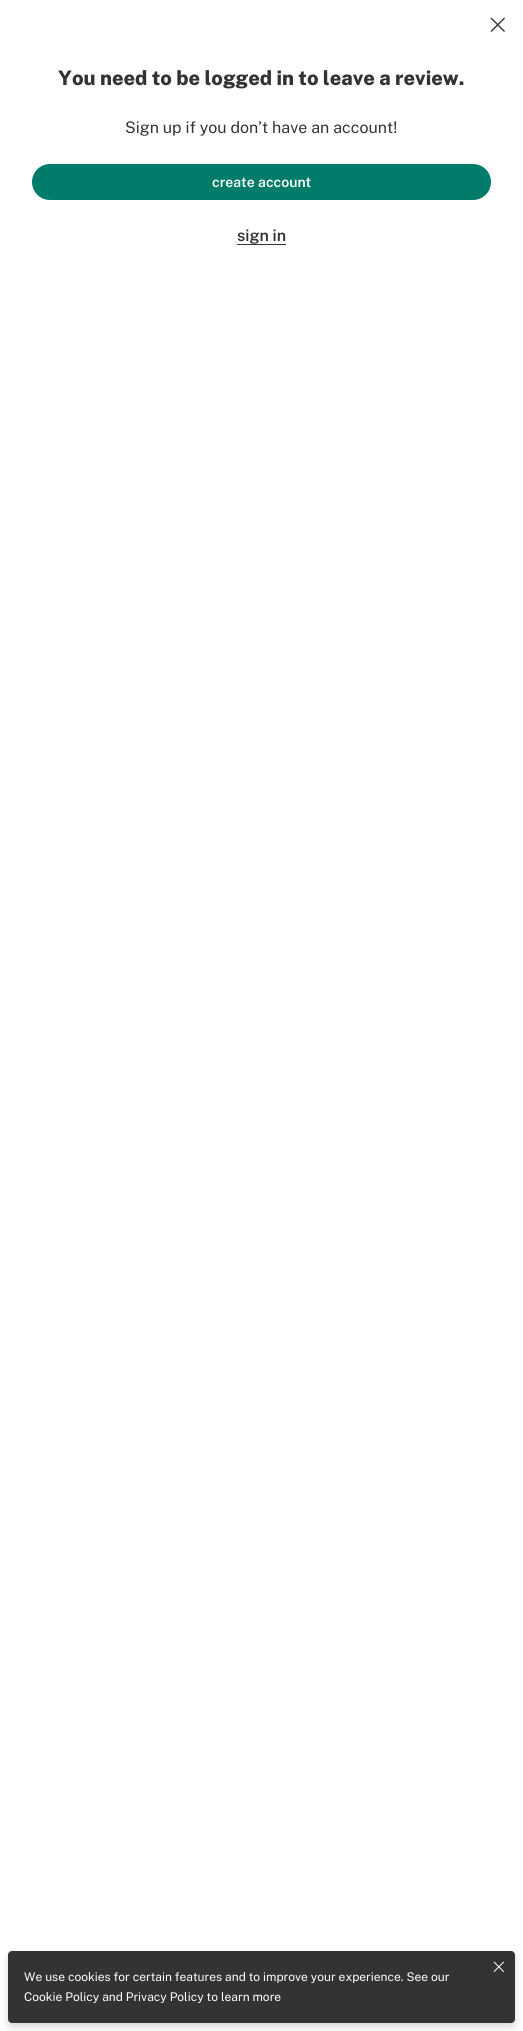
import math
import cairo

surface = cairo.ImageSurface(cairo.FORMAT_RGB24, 523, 2031)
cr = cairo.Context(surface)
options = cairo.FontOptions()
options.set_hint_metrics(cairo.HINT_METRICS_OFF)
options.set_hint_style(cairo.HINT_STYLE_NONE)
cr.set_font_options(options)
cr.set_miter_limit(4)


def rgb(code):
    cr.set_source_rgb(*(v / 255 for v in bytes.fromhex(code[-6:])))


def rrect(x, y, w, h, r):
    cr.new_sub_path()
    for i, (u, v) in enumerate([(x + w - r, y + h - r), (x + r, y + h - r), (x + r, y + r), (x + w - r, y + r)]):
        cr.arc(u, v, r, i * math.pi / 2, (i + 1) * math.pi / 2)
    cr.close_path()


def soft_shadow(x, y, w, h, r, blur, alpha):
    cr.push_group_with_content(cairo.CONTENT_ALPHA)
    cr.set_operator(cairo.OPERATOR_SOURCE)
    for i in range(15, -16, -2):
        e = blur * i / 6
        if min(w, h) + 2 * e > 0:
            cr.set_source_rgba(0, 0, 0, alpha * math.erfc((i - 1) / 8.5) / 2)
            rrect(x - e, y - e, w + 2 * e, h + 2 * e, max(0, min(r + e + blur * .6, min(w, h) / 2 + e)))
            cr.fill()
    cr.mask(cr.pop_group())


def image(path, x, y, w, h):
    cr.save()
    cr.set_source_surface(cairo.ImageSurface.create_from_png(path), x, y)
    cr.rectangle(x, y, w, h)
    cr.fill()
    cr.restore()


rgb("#ffffff")
cr.paint()
image("img/1.png", 490, 17, 15, 15)
rgb("#017c6b")
rrect(32, 164, 459, 36, 18)
cr.fill()
rgb("#333333")
cr.rectangle(237, 244, 49, 1)
cr.fill()
rgb("#000000")
soft_shadow(8, 1955, 507, 72, 4, 4, 0.16)
rgb("#333333")
rrect(8, 1951, 507, 72, 4)
cr.fill()
image("img/2.png", 493, 1961, 11, 11)
cr.select_font_face("Public Sans ExtraBold")
cr.set_font_size(20)
cr.move_to(58, 85)
cr.show_text("You need to be logged in to leave a review.")
cr.select_font_face("Public Sans")
cr.set_font_size(16)
cr.move_to(125, 133)
cr.show_text("Sign up if you don’t have an account!")
cr.select_font_face("Public Sans SemiBold")
cr.set_font_size(14)
rgb("#ffffff")
cr.move_to(212, 187)
cr.show_text("create account")
cr.set_font_size(16)
rgb("#333333")
cr.move_to(237, 241)
cr.show_text("sign in")
cr.select_font_face("Public Sans")
cr.set_font_size(12)
rgb("#ffffff")
cr.move_to(24, 1981)
cr.show_text("We use cookies for certain features and to improve your experience. See our")
cr.move_to(24, 2001)
cr.show_text("Cookie Policy and Privacy Policy to learn more")
surface.write_to_png("page.png")
